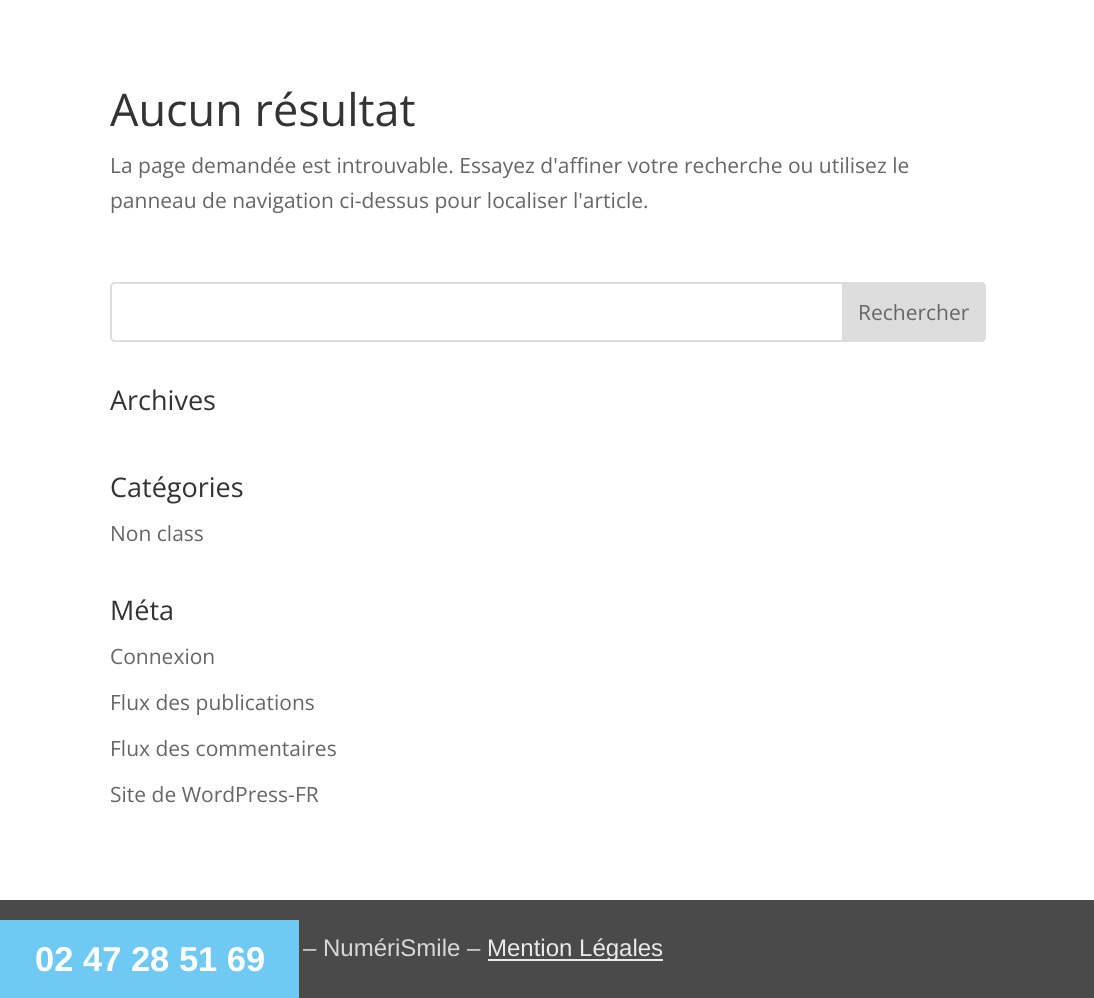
import math
import cairo

surface = cairo.ImageSurface(cairo.FORMAT_RGB24, 1094, 998)
cr = cairo.Context(surface)
options = cairo.FontOptions()
options.set_hint_metrics(cairo.HINT_METRICS_OFF)
options.set_hint_style(cairo.HINT_STYLE_NONE)
cr.set_font_options(options)
cr.set_miter_limit(4)


def rgb(code):
    cr.set_source_rgb(*(v / 255 for v in bytes.fromhex(code[-6:])))


def rrect(x, y, w, h, r):
    cr.new_sub_path()
    for i, (u, v) in enumerate([(x + w - r, y + h - r), (x + r, y + h - r), (x + r, y + r), (x + w - r, y + r)]):
        cr.arc(u, v, r, i * math.pi / 2, (i + 1) * math.pi / 2)
    cr.close_path()


rgb("#ffffff")
cr.paint()
rrect(111, 283, 874, 58, 4)
rgb("#dddddd")
cr.stroke()
cr.new_path()
cr.move_to(843, 283)
cr.line_to(981, 283)
cr.curve_to(983, 283, 985, 285, 985, 287)
cr.line_to(985, 337)
cr.curve_to(985, 339, 983, 341, 981, 341)
cr.line_to(843, 341)
cr.close_path()
cr.fill_preserve()
cr.stroke()
for x, y, w, h, color in [
    (0, 900, 1094, 98, "#4a4a4a"),
    (488, 959, 175, 2, "#eaeaea"),
    (0, 920, 299, 78, "#70c9f2"),
]:
    rgb(color)
    cr.rectangle(x, y, w, h)
    cr.fill()
cr.select_font_face("Open Sans")
cr.set_font_size(45)
rgb("#333333")
cr.move_to(110, 126)
cr.show_text("Aucun résultat")
cr.set_font_size(21)
rgb("#666666")
for x, y, s in [
    (110, 173, "La page demandée est introuvable. Essayez d'affiner votre recherche ou utilisez le"),
    (110, 208, "panneau de navigation ci-dessus pour localiser l'article."),
    (858, 320, "Rechercher"),
]:
    cr.move_to(x, y)
    cr.show_text(s)
cr.set_font_size(27)
rgb("#333333")
cr.move_to(110, 410)
cr.show_text("Archives")
cr.move_to(110, 497)
cr.show_text("Catégories")
cr.set_font_size(21)
rgb("#666666")
cr.move_to(110, 541)
cr.show_text("Non class")
cr.set_font_size(27)
rgb("#333333")
cr.move_to(110, 620)
cr.show_text("Méta")
cr.set_font_size(21)
rgb("#666666")
for x, y, s in [
    (110, 664, "Connexion"),
    (110, 710, "Flux des publications"),
    (110, 756, "Flux des commentaires"),
    (110, 802, "Site de WordPress-FR"),
]:
    cr.move_to(x, y)
    cr.show_text(s)
cr.select_font_face("Liberation Sans")
cr.set_font_size(24)
rgb("#d8d8d8")
cr.move_to(303, 956)
cr.show_text("– NumériSmile –")
rgb("#eaeaea")
cr.move_to(487, 956)
cr.show_text("Mention Légales")
cr.select_font_face("Liberation Sans", cairo.FONT_SLANT_NORMAL, cairo.FONT_WEIGHT_BOLD)
cr.set_font_size(34.5)
rgb("#ffffff")
cr.move_to(35, 971)
cr.show_text("02 47 28 51 69")
surface.write_to_png("page.png")
